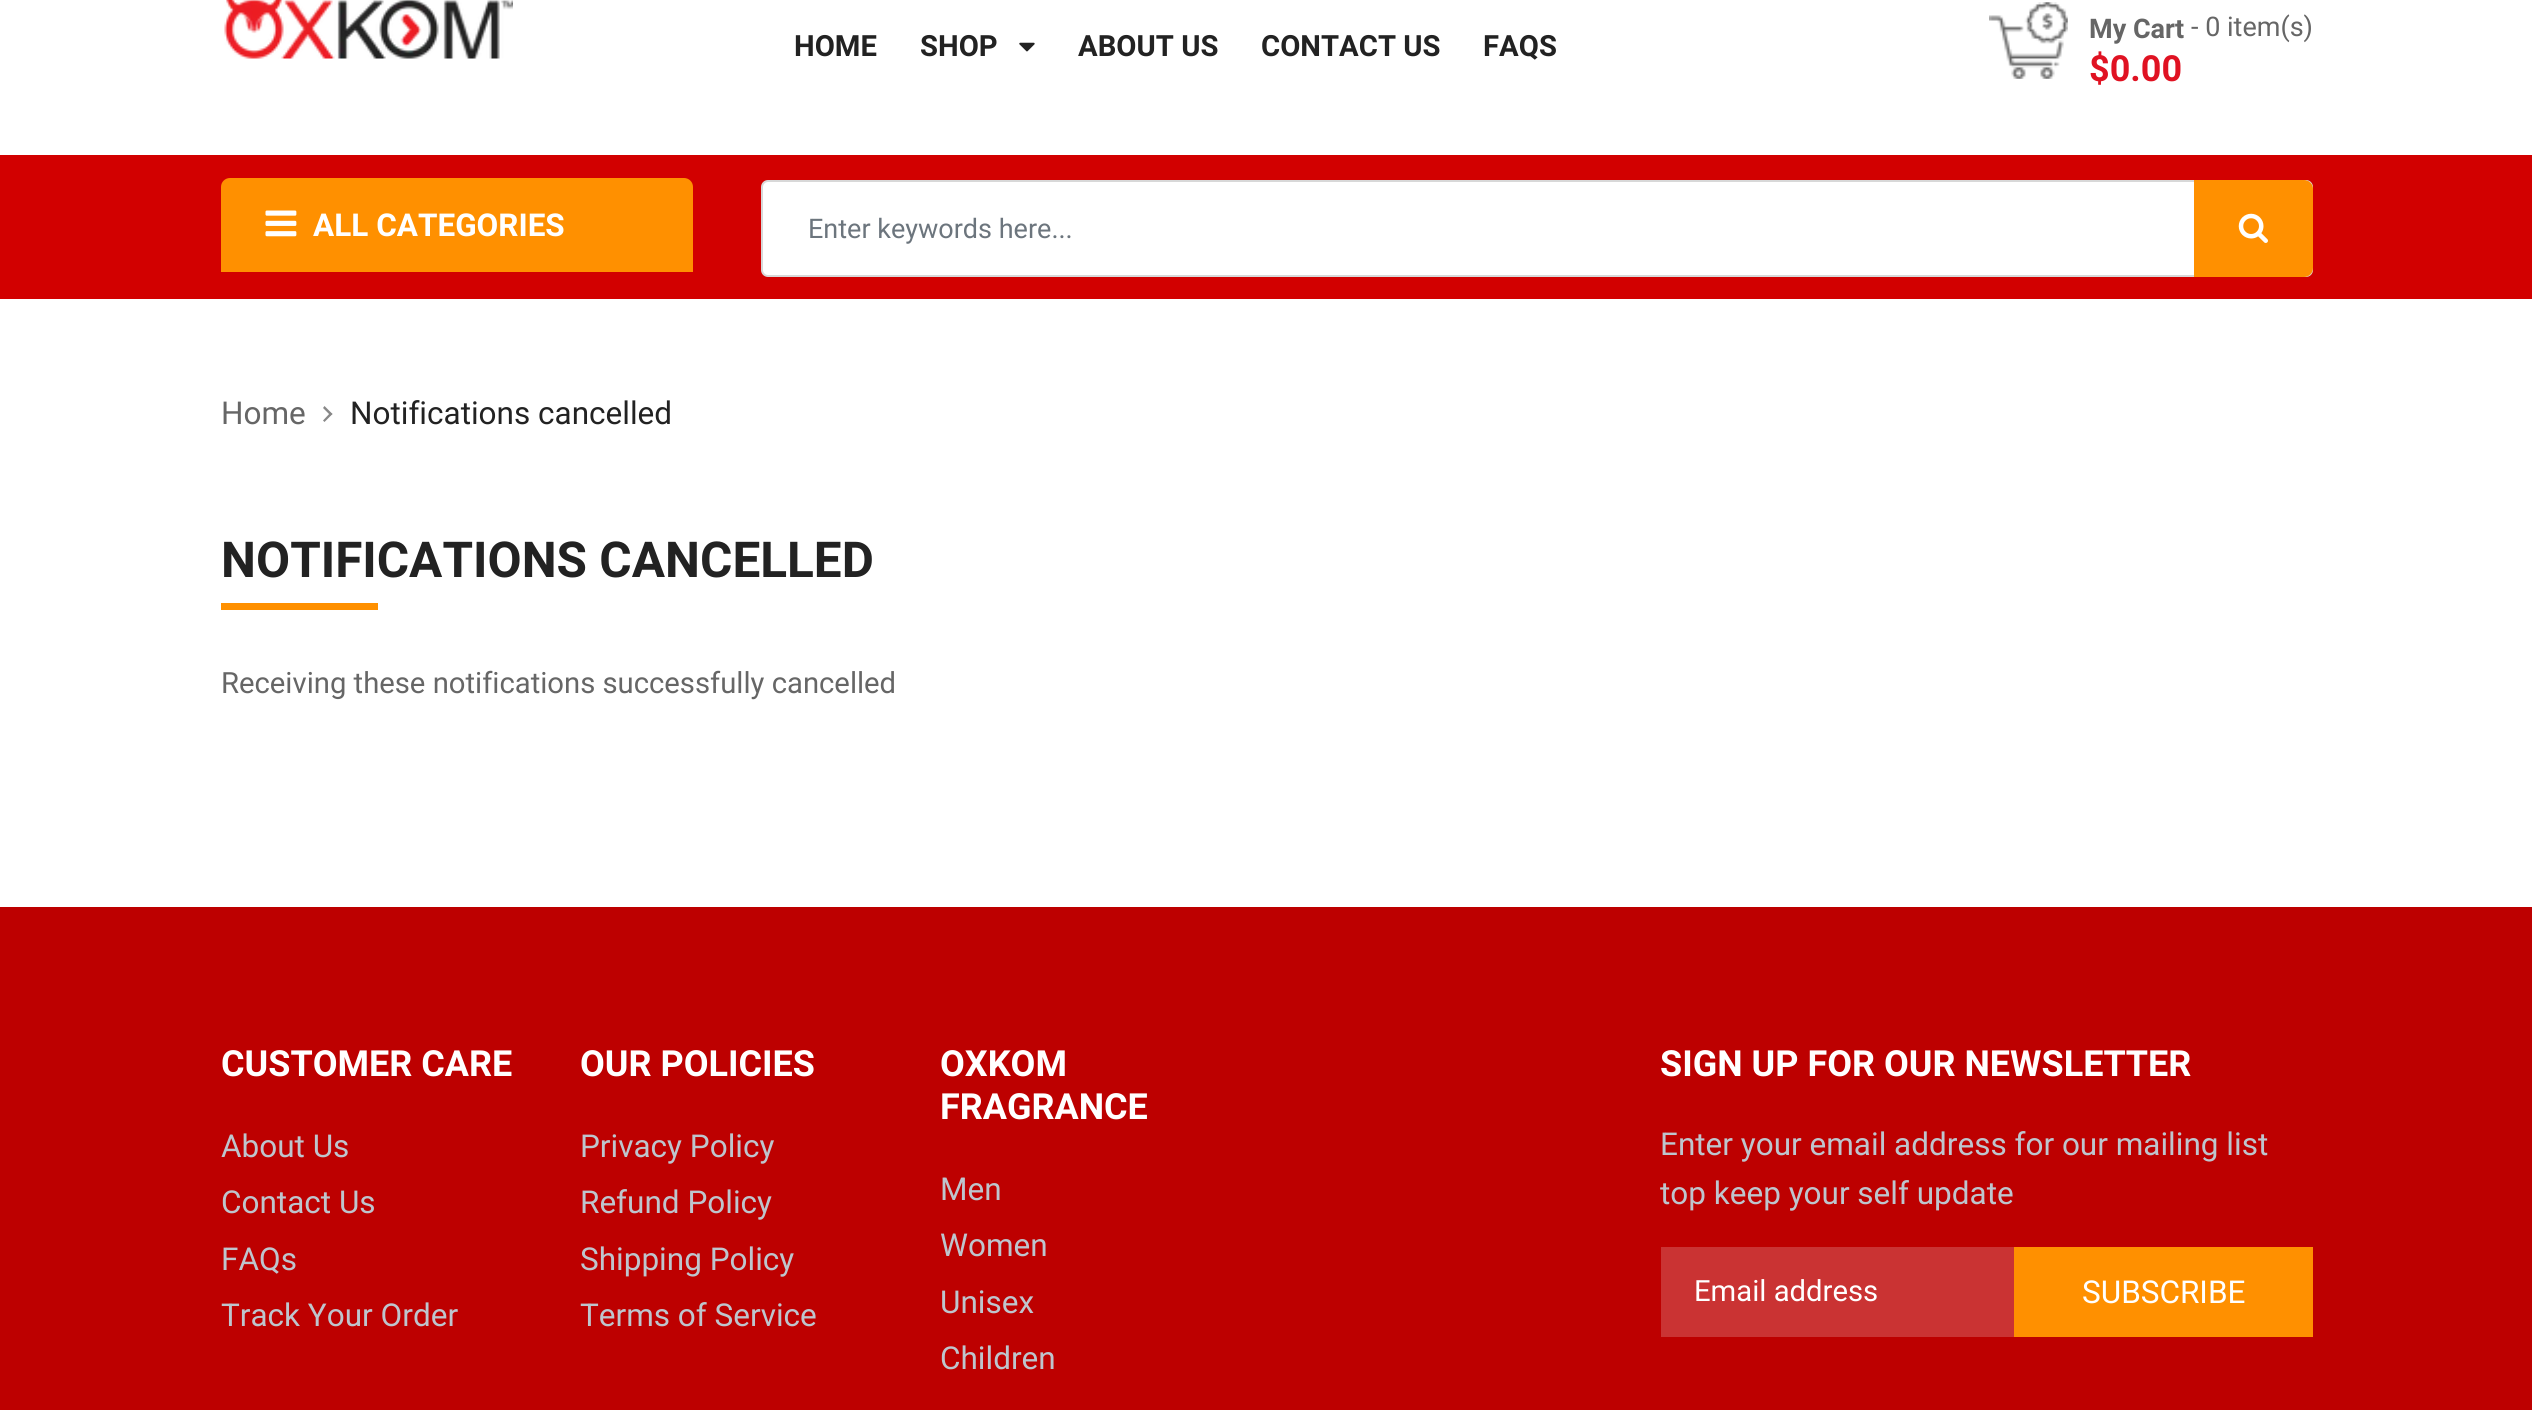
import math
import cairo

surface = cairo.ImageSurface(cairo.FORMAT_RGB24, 2532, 1410)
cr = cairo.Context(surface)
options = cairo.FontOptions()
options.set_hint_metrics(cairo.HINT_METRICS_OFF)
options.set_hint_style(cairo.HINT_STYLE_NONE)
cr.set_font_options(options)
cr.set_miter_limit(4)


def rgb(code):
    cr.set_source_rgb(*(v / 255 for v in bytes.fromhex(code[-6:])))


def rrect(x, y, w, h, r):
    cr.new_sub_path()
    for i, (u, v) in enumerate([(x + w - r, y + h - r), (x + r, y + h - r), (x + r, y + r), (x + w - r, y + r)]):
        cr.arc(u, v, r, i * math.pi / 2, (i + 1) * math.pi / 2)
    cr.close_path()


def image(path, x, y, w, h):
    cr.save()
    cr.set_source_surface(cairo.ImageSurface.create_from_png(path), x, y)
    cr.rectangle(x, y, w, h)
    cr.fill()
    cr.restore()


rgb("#ffffff")
cr.paint()
image("img/1.png", 224, 0, 289, 59)
image("img/2.png", 1019, 42, 16, 10)
image("img/3.png", 1989, 2, 79, 77)
rgb("#d20000")
cr.rectangle(0, 155, 2532, 144)
cr.fill()
rgb("#ff9000")
cr.new_path()
cr.move_to(230, 178)
cr.line_to(684, 178)
cr.curve_to(689, 178, 693, 182, 693, 187)
cr.line_to(693, 272)
cr.line_to(221, 272)
cr.line_to(221, 187)
cr.curve_to(221, 182, 225, 178, 230, 178)
cr.close_path()
cr.fill()
image("img/4.png", 265, 210, 32, 27)
rgb("#ffffff")
rrect(762, 181, 1550, 95, 6)
cr.fill_preserve()
rgb("#d8d8d8")
cr.stroke()
rgb("#ff9000")
cr.new_path()
cr.move_to(2194, 180)
cr.line_to(2304, 180)
cr.curve_to(2309, 180, 2313, 184, 2313, 189)
cr.line_to(2313, 268)
cr.curve_to(2313, 273, 2309, 277, 2304, 277)
cr.line_to(2194, 277)
cr.close_path()
cr.fill()
image("img/5.png", 2238, 213, 30, 30)
rgb("#888888")
cr.new_path()
cr.move_to(324.5, 406)
cr.line_to(332.5, 414)
cr.line_to(330.5, 415.5)
cr.line_to(323, 408)
cr.close_path()
cr.fill()
cr.new_path()
cr.move_to(330.5, 412.5)
cr.line_to(332.5, 414)
cr.line_to(324.5, 422)
cr.line_to(323, 420.5)
cr.close_path()
cr.fill()
for x, y, w, h, color in [
    (221, 603, 157, 7, "#ff9000"),
    (0, 907, 2532, 503, "#bd0000"),
    (1661, 1247, 353, 90, "#ca3333"),
    (2014, 1247, 299, 90, "#ff9000"),
]:
    rgb(color)
    cr.rectangle(x, y, w, h)
    cr.fill()
cr.select_font_face("Roboto", cairo.FONT_SLANT_NORMAL, cairo.FONT_WEIGHT_BOLD)
cr.set_font_size(29.25)
rgb("#222222")
for x, y, s in [
    (794, 56, "HOME"),
    (920, 56, "SHOP"),
    (1078, 56, "ABOUT US"),
    (1261, 56, "CONTACT US"),
    (1483, 56, "FAQS"),
]:
    cr.move_to(x, y)
    cr.show_text(s)
cr.set_font_size(27)
rgb("#666666")
cr.move_to(2089, 38)
cr.show_text("My Cart")
cr.select_font_face("Roboto")
cr.move_to(2191, 36)
cr.show_text("- 0 item(s)")
cr.select_font_face("Roboto", cairo.FONT_SLANT_NORMAL, cairo.FONT_WEIGHT_BOLD)
cr.set_font_size(36)
rgb("#e01222")
cr.move_to(2089, 81)
cr.show_text("$0.00")
cr.set_font_size(31.5)
rgb("#ffffff")
cr.move_to(313, 236)
cr.show_text("ALL CATEGORIES")
cr.select_font_face("Roboto")
cr.set_font_size(27)
rgb("#6c757d")
cr.move_to(808, 238)
cr.show_text("Enter keywords here...")
cr.set_font_size(31.5)
rgb("#666666")
cr.move_to(221, 424)
cr.show_text("Home")
rgb("#222222")
cr.move_to(350, 424)
cr.show_text("Notifications cancelled")
cr.select_font_face("Roboto", cairo.FONT_SLANT_NORMAL, cairo.FONT_WEIGHT_BOLD)
cr.set_font_size(49.5)
cr.move_to(221, 577)
cr.show_text("NOTIFICATIONS CANCELLED")
cr.select_font_face("Roboto")
cr.set_font_size(29.25)
rgb("#666666")
cr.move_to(221, 693)
cr.show_text("Receiving these notifications successfully cancelled")
cr.select_font_face("Roboto", cairo.FONT_SLANT_NORMAL, cairo.FONT_WEIGHT_BOLD)
cr.set_font_size(36)
rgb("#ffffff")
cr.move_to(221, 1076)
cr.show_text("CUSTOMER CARE")
cr.select_font_face("Roboto")
cr.set_font_size(31.5)
rgb("#bec5cd")
for x, y, s in [
    (221, 1157, "About Us"),
    (221, 1213, "Contact Us"),
    (221, 1270, "FAQs"),
    (221, 1326, "Track Your Order"),
]:
    cr.move_to(x, y)
    cr.show_text(s)
cr.select_font_face("Roboto", cairo.FONT_SLANT_NORMAL, cairo.FONT_WEIGHT_BOLD)
cr.set_font_size(36)
rgb("#ffffff")
cr.move_to(580, 1076)
cr.show_text("OUR POLICIES")
cr.select_font_face("Roboto")
cr.set_font_size(31.5)
rgb("#bec5cd")
for x, y, s in [
    (580, 1157, "Privacy Policy"),
    (580, 1213, "Refund Policy"),
    (580, 1270, "Shipping Policy"),
    (580, 1326, "Terms of Service"),
]:
    cr.move_to(x, y)
    cr.show_text(s)
cr.select_font_face("Roboto", cairo.FONT_SLANT_NORMAL, cairo.FONT_WEIGHT_BOLD)
cr.set_font_size(36)
rgb("#ffffff")
cr.move_to(940, 1076)
cr.show_text("OXKOM")
cr.move_to(940, 1119)
cr.show_text("FRAGRANCE")
cr.select_font_face("Roboto")
cr.set_font_size(31.5)
rgb("#bec5cd")
for x, y, s in [
    (940, 1200, "Men"),
    (940, 1256, "Women"),
    (940, 1313, "Unisex"),
    (940, 1369, "Children"),
]:
    cr.move_to(x, y)
    cr.show_text(s)
cr.select_font_face("Roboto", cairo.FONT_SLANT_NORMAL, cairo.FONT_WEIGHT_BOLD)
cr.set_font_size(36)
rgb("#ffffff")
cr.move_to(1660, 1076)
cr.show_text("SIGN UP FOR OUR NEWSLETTER")
cr.select_font_face("Roboto")
cr.set_font_size(31.5)
rgb("#bec5cd")
cr.move_to(1660, 1155)
cr.show_text("Enter your email address for our mailing list")
cr.move_to(1660, 1204)
cr.show_text("top keep your self update")
cr.set_font_size(29.25)
rgb("#ffffff")
cr.move_to(1694, 1301)
cr.show_text("Email address")
cr.set_font_size(31.5)
cr.move_to(2082, 1303)
cr.show_text("SUBSCRIBE")
surface.write_to_png("page.png")
